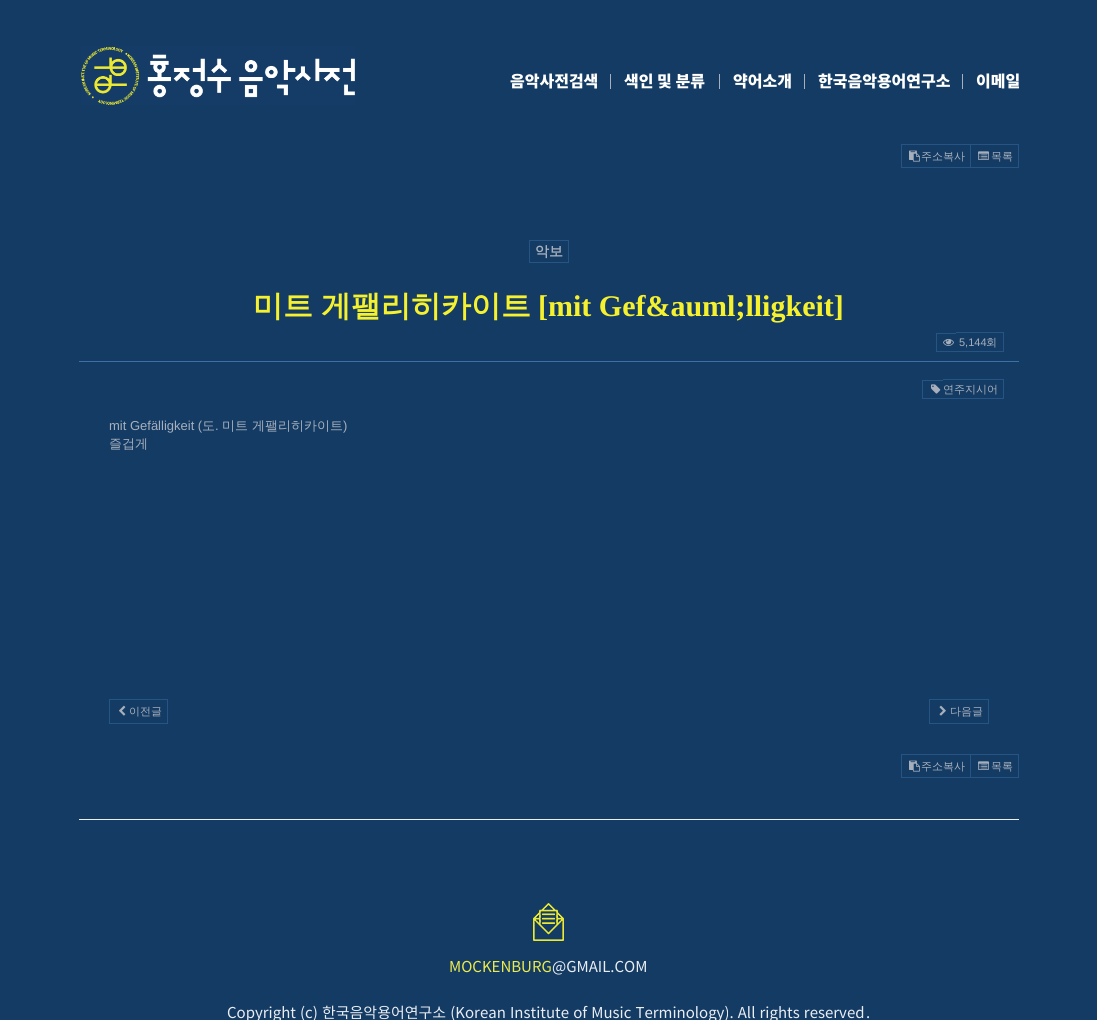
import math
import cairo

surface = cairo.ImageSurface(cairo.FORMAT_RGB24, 1097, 1020)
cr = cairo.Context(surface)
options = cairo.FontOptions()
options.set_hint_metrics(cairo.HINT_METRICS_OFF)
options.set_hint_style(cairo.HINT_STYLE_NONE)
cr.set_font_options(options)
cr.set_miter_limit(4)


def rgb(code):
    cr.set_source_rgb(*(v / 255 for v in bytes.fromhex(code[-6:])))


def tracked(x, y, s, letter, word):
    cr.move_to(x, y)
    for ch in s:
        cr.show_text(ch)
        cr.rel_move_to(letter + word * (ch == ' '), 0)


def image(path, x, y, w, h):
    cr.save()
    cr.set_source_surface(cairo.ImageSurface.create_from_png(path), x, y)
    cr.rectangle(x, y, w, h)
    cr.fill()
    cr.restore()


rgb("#133b64")
cr.paint()
image("img/1.png", 81, 46, 274, 59)
for x, y, w, h, color in [
    (610, 74, 1, 15, "#a7afbc"),
    (719, 74, 1, 15, "#a7afbc"),
    (804, 74, 1, 15, "#a7afbc"),
    (962, 74, 1, 15, "#a7afbc"),
]:
    rgb(color)
    cr.rectangle(x, y, w, h)
    cr.fill()
cr.rectangle(901.5, 144.5, 69, 23)
rgb("#255485")
cr.set_line_width(1)
cr.stroke()
image("img/2.png", 909, 150, 11, 12)
cr.rectangle(970.5, 144.5, 48, 23)
cr.stroke()
image("img/3.png", 978, 151, 11, 9)
rgb("#3d70a5")
cr.rectangle(79, 361, 940, 1)
cr.fill()
cr.rectangle(529.5, 240.5, 39, 22)
rgb("#255485")
cr.stroke()
for x, y, w, h, color in [
    (936, 333, 20, 1, "#255485"),
    (936, 351, 20, 1, "#255485"),
    (936, 333, 1, 19, "#255485"),
    (956, 332, 48, 1, "#255485"),
    (1003, 332, 1, 20, "#255485"),
    (956, 351, 48, 1, "#255485"),
]:
    rgb(color)
    cr.rectangle(x, y, w, h)
    cr.fill()
image("img/4.png", 943, 338, 11, 8)
for x, y, w, h, color in [
    (922, 380, 21, 1, "#255485"),
    (922, 398, 21, 1, "#255485"),
    (922, 380, 1, 19, "#255485"),
    (943, 379, 61, 1, "#255485"),
    (1003, 379, 1, 20, "#255485"),
    (943, 398, 61, 1, "#255485"),
]:
    rgb(color)
    cr.rectangle(x, y, w, h)
    cr.fill()
image("img/5.png", 931, 384, 10, 10)
cr.rectangle(109.5, 699.5, 58, 24)
cr.stroke()
image("img/6.png", 119, 705, 7, 11)
cr.rectangle(929.5, 699.5, 59, 24)
cr.stroke()
image("img/7.png", 939, 705, 7, 11)
cr.rectangle(901.5, 754.5, 69, 23)
cr.stroke()
image("img/2.png", 909, 760, 11, 12)
cr.rectangle(970.5, 754.5, 48, 23)
cr.stroke()
image("img/3.png", 978, 761, 11, 9)
rgb("#eeeeee")
cr.rectangle(79, 819, 940, 1)
cr.fill()
image("img/8.png", 533, 903, 31, 38)
cr.select_font_face("Noto Sans KR Black")
cr.set_font_size(16)
rgb("#ffffff")
for x, y, s in [
    (510, 87, "음악사전검색"),
    (624, 87, "색인 및 분류"),
    (733, 87, "약어소개"),
    (818, 87, "한국음악용어연구소"),
    (976, 87, "이메일"),
]:
    cr.move_to(x, y)
    cr.show_text(s)
cr.select_font_face("WenQuanYi Zen Hei Medium")
cr.set_font_size(11)
rgb("#a7afbc")
cr.move_to(921, 160)
cr.show_text("주소복사")
cr.move_to(991, 160)
cr.show_text("목록")
cr.select_font_face("WenQuanYi Zen Hei", cairo.FONT_SLANT_NORMAL, cairo.FONT_WEIGHT_BOLD)
cr.set_font_size(14)
cr.move_to(535, 256)
cr.show_text("악보")
cr.set_font_size(30)
rgb("#f6f12f")
cr.move_to(253, 316)
cr.show_text("미트")
cr.move_to(321, 316)
cr.show_text("게팰리히카이트")
cr.select_font_face("Liberation Serif", cairo.FONT_SLANT_NORMAL, cairo.FONT_WEIGHT_BOLD)
cr.move_to(538, 316)
cr.show_text("[mit Gef&auml;lligkeit]")
cr.select_font_face("Liberation Sans")
cr.set_font_size(11)
rgb("#a7afbc")
cr.move_to(959, 346)
cr.show_text("5,144")
cr.select_font_face("WenQuanYi Zen Hei Medium")
cr.move_to(986, 346)
cr.show_text("회")
cr.move_to(943, 393)
cr.show_text("연주지시어")
cr.select_font_face("Liberation Sans")
cr.set_font_size(13)
cr.move_to(109, 430)
cr.show_text("mit Gefälligkeit (")
cr.select_font_face("WenQuanYi Zen Hei Medium")
cr.move_to(202, 430)
cr.show_text("도")
cr.select_font_face("Liberation Sans")
cr.move_to(215, 430)
cr.show_text(".")
cr.select_font_face("WenQuanYi Zen Hei Medium")
cr.move_to(222, 430)
cr.show_text("미트 게팰리히카이트")
cr.select_font_face("Liberation Sans")
cr.move_to(343, 430)
cr.show_text(")")
cr.select_font_face("WenQuanYi Zen Hei Medium")
cr.move_to(109, 448)
cr.show_text("즐겁게")
cr.set_font_size(11)
for x, y, s in [
    (129, 715, "이전글"),
    (950, 715, "다음글"),
    (921, 770, "주소복사"),
    (991, 770, "목록"),
]:
    cr.move_to(x, y)
    cr.show_text(s)
cr.select_font_face("Noto Sans KR")
cr.set_font_size(15)
rgb("#eceb4c")
cr.move_to(449, 972)
cr.show_text("MOCKENBURG")
rgb("#eaedf2")
cr.move_to(552, 972)
cr.show_text("@GMAIL.COM")
tracked(227, 1018, "Copyright (c) 한국음악용어연구소 (Korean Institute of Music Terminology). All rights reserved", 0, 0.75)
cr.move_to(866, 1018)
cr.show_text(".")
surface.write_to_png("page.png")
